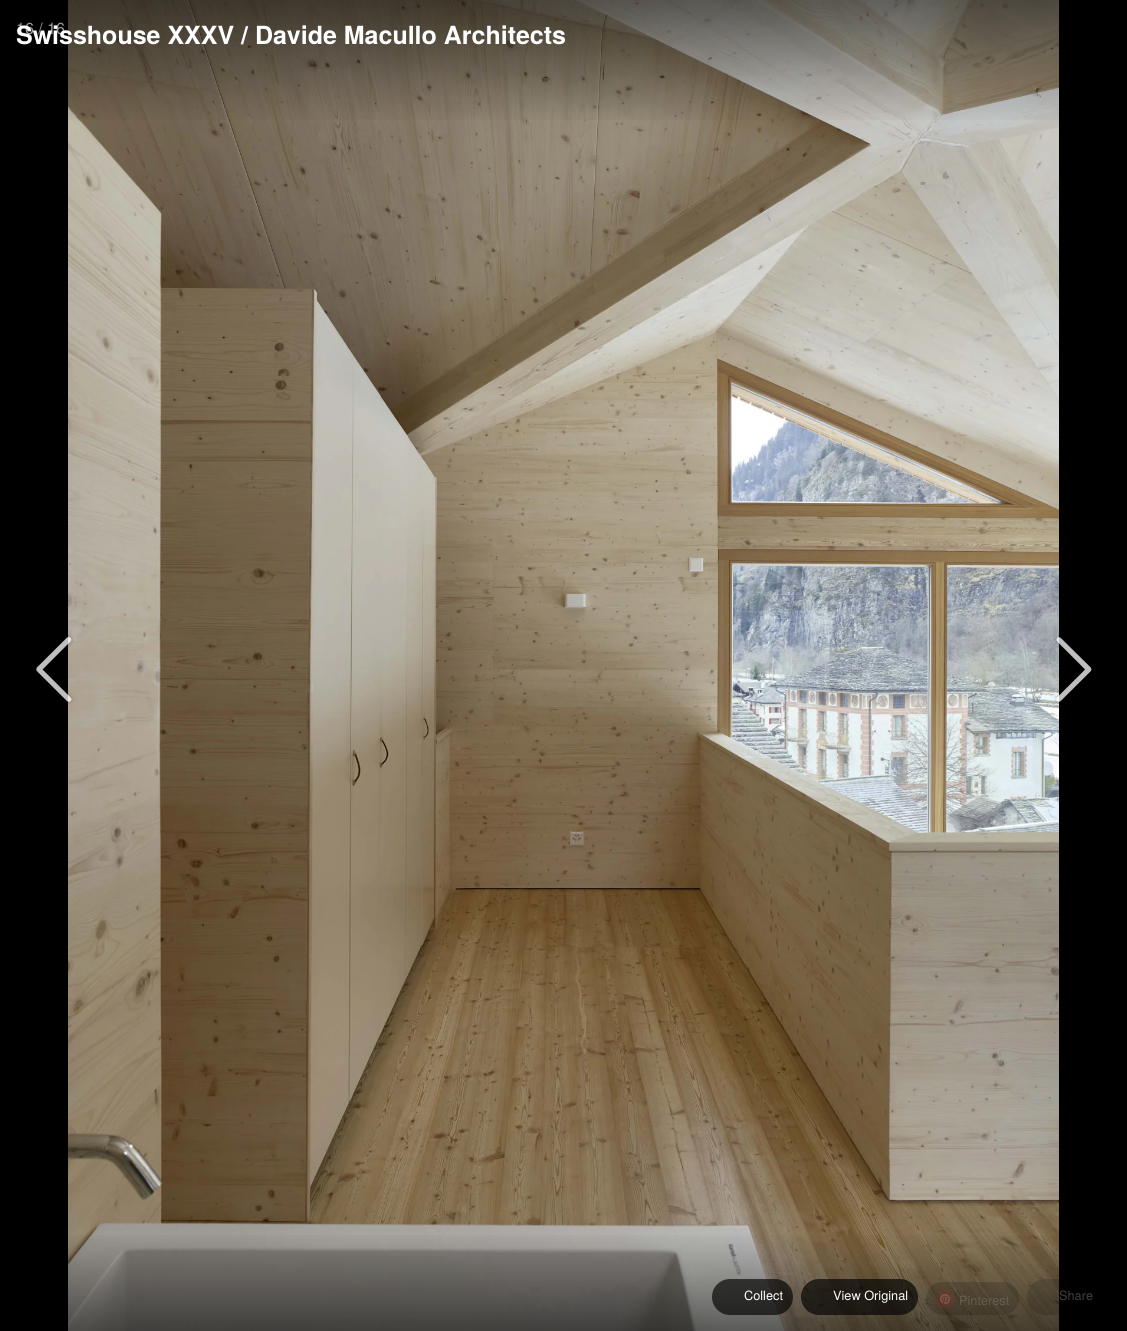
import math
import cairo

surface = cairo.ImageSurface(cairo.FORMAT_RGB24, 1127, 1331)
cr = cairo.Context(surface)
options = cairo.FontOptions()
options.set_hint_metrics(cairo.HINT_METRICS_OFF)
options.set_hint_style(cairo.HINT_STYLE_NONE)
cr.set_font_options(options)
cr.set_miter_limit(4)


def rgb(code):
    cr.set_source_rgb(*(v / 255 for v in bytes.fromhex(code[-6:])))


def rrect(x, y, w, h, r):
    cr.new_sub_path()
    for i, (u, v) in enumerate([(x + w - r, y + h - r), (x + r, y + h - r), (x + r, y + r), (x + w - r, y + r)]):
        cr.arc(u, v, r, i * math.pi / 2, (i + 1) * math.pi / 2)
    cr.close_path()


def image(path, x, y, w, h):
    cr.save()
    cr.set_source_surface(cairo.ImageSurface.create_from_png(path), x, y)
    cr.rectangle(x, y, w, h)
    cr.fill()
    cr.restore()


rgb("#000000")
cr.paint()
image("img/1.png", 68, 0, 991, 1331)
image("img/2.png", 36, 634, 38, 70)
image("img/3.png", 1054, 635, 38, 69)
gradient = cairo.LinearGradient(564, 1331, 564, 1231)
gradient.add_color_stop_rgba(0, 0, 0, 0, 0.5)
gradient.add_color_stop_rgba(1, 0, 0, 0, 0)
cr.set_source(gradient)
cr.rectangle(68, 1235, 991, 96)
cr.fill()
cr.set_source_rgba(0, 0, 0, 0.65)
rrect(712, 1279, 81, 36, 18)
cr.fill()
rrect(801, 1279, 117, 36, 18)
cr.fill()
cr.set_source_rgba(0, 0, 0, 0.16)
rrect(926, 1282, 93, 33, 16.5)
cr.fill()
image("img/4.png", 935, 1289, 20, 20)
rrect(1027, 1279, 76, 36, 18)
cr.fill()
cr.select_font_face("TeX Gyre Heros")
cr.set_font_size(16)
rgb("#ffffff")
cr.move_to(16, 34)
cr.show_text("16 / 16")
gradient = cairo.LinearGradient(564, 0, 564, 125)
gradient.add_color_stop_rgba(0, 0, 0, 0, 0.5)
gradient.add_color_stop_rgba(1, 0, 0, 0, 0)
cr.set_source(gradient)
cr.rectangle(17, 0, 1042, 120)
cr.fill()
cr.select_font_face("TeX Gyre Heros", cairo.FONT_SLANT_NORMAL, cairo.FONT_WEIGHT_BOLD)
cr.set_font_size(25)
rgb("#ffffff")
cr.move_to(16, 44)
cr.show_text("Swisshouse XXXV / Davide Macullo Architects")
cr.select_font_face("TeX Gyre Heros")
cr.set_font_size(12.75)
cr.move_to(744, 1300)
cr.show_text("Collect")
cr.move_to(833, 1300)
cr.show_text("View Original")
rgb("#665e50")
cr.move_to(959, 1305)
cr.show_text("Pinterest")
rgb("#404040")
cr.move_to(1059, 1300)
cr.show_text("Share")
surface.write_to_png("page.png")
